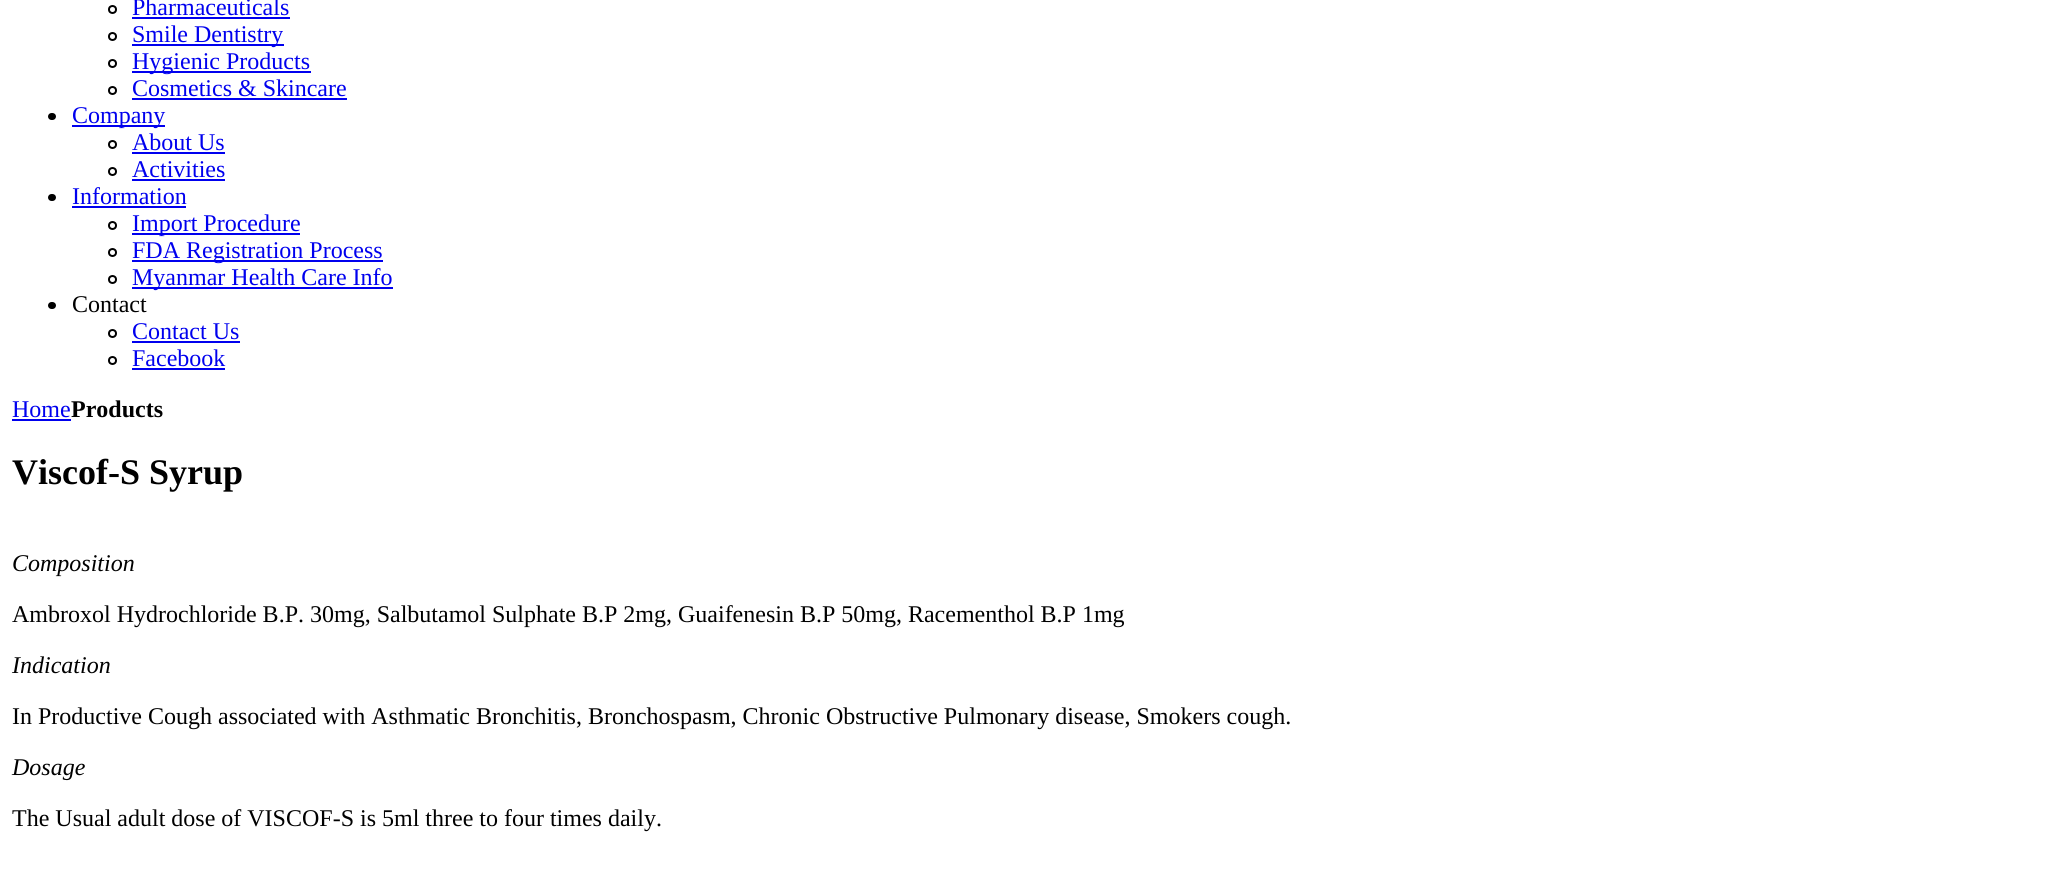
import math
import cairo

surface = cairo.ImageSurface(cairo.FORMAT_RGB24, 2063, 870)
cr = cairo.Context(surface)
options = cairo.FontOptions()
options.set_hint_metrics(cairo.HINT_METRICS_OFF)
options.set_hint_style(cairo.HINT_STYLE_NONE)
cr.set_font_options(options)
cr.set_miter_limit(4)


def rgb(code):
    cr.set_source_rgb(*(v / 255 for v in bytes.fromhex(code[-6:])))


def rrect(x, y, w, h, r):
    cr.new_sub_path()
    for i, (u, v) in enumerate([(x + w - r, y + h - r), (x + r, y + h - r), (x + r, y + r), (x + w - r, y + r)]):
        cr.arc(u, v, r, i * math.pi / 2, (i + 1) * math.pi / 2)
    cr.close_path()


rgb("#ffffff")
cr.paint()
cr.arc(112.5, 9.5, 3.5, 0, 2 * math.pi)
rgb("#000000")
cr.stroke()
rgb("#0000ee")
cr.rectangle(132, 17, 158, 2)
cr.fill()
cr.arc(112.5, 36.5, 3.5, 0, 2 * math.pi)
rgb("#000000")
cr.stroke()
rgb("#0000ee")
cr.rectangle(132, 44, 152, 2)
cr.fill()
cr.arc(112.5, 63.5, 3.5, 0, 2 * math.pi)
rgb("#000000")
cr.stroke()
rgb("#0000ee")
cr.rectangle(132, 71, 179, 2)
cr.fill()
cr.arc(112.5, 90.5, 3.5, 0, 2 * math.pi)
rgb("#000000")
cr.stroke()
rgb("#0000ee")
cr.rectangle(132, 98, 215, 2)
cr.fill()
rgb("#000000")
rrect(48, 113, 8, 7, 3.5)
cr.fill()
rgb("#0000ee")
cr.rectangle(72, 125, 93, 2)
cr.fill()
cr.arc(112.5, 144.5, 3.5, 0, 2 * math.pi)
rgb("#000000")
cr.stroke()
rgb("#0000ee")
cr.rectangle(132, 152, 93, 2)
cr.fill()
cr.arc(112.5, 171.5, 3.5, 0, 2 * math.pi)
rgb("#000000")
cr.stroke()
rgb("#0000ee")
cr.rectangle(132, 179, 93, 2)
cr.fill()
rgb("#000000")
rrect(48, 194, 8, 7, 3.5)
cr.fill()
rgb("#0000ee")
cr.rectangle(72, 206, 114, 2)
cr.fill()
cr.arc(112.5, 225.5, 3.5, 0, 2 * math.pi)
rgb("#000000")
cr.stroke()
rgb("#0000ee")
cr.rectangle(132, 233, 168, 2)
cr.fill()
cr.arc(112.5, 252.5, 3.5, 0, 2 * math.pi)
rgb("#000000")
cr.stroke()
rgb("#0000ee")
cr.rectangle(132, 260, 251, 2)
cr.fill()
cr.arc(112.5, 279.5, 3.5, 0, 2 * math.pi)
rgb("#000000")
cr.stroke()
rgb("#0000ee")
cr.rectangle(132, 287, 261, 2)
cr.fill()
rgb("#000000")
rrect(48, 302, 8, 7, 3.5)
cr.fill()
cr.arc(112.5, 333.5, 3.5, 0, 2 * math.pi)
cr.stroke()
rgb("#0000ee")
cr.rectangle(132, 341, 108, 2)
cr.fill()
cr.arc(112.5, 360.5, 3.5, 0, 2 * math.pi)
rgb("#000000")
cr.stroke()
rgb("#0000ee")
cr.rectangle(132, 368, 93, 2)
cr.fill()
cr.rectangle(12, 419, 59, 2)
cr.fill()
cr.select_font_face("Liberation Serif")
cr.set_font_size(24)
for x, y, s in [
    (132, 15, "Pharmaceuticals"),
    (132, 42, "Smile Dentistry"),
    (132, 69, "Hygienic Products"),
    (132, 96, "Cosmetics & Skincare"),
    (72, 123, "Company"),
    (132, 150, "About Us"),
    (132, 177, "Activities"),
    (72, 204, "Information"),
    (132, 231, "Import Procedure"),
    (132, 258, "FDA Registration Process"),
    (132, 285, "Myanmar Health Care Info"),
]:
    cr.move_to(x, y)
    cr.show_text(s)
rgb("#000000")
cr.move_to(72, 312)
cr.show_text("Contact")
rgb("#0000ee")
for x, y, s in [
    (132, 339, "Contact Us"),
    (132, 366, "Facebook"),
    (12, 417, "Home"),
]:
    cr.move_to(x, y)
    cr.show_text(s)
cr.select_font_face("Liberation Serif", cairo.FONT_SLANT_NORMAL, cairo.FONT_WEIGHT_BOLD)
rgb("#000000")
cr.move_to(71, 417)
cr.show_text("Products")
cr.set_font_size(36)
cr.move_to(12, 484)
cr.show_text("Viscof-S Syrup")
cr.select_font_face("Liberation Serif", cairo.FONT_SLANT_ITALIC)
cr.set_font_size(24)
cr.move_to(12, 571)
cr.show_text("Composition")
cr.select_font_face("Liberation Serif")
cr.move_to(12, 622)
cr.show_text("Ambroxol Hydrochloride B.P. 30mg, Salbutamol Sulphate B.P 2mg, Guaifenesin B.P 50mg, Racementhol B.P 1mg")
cr.select_font_face("Liberation Serif", cairo.FONT_SLANT_ITALIC)
cr.move_to(12, 673)
cr.show_text("Indication")
cr.select_font_face("Liberation Serif")
cr.move_to(12, 724)
cr.show_text("In Productive Cough associated with Asthmatic Bronchitis, Bronchospasm, Chronic Obstructive Pulmonary disease, Smokers cough.")
cr.select_font_face("Liberation Serif", cairo.FONT_SLANT_ITALIC)
cr.move_to(12, 775)
cr.show_text("Dosage")
cr.select_font_face("Liberation Serif")
cr.move_to(12, 826)
cr.show_text("The Usual adult dose of VISCOF-S is 5ml three to four times daily.")
surface.write_to_png("page.png")
